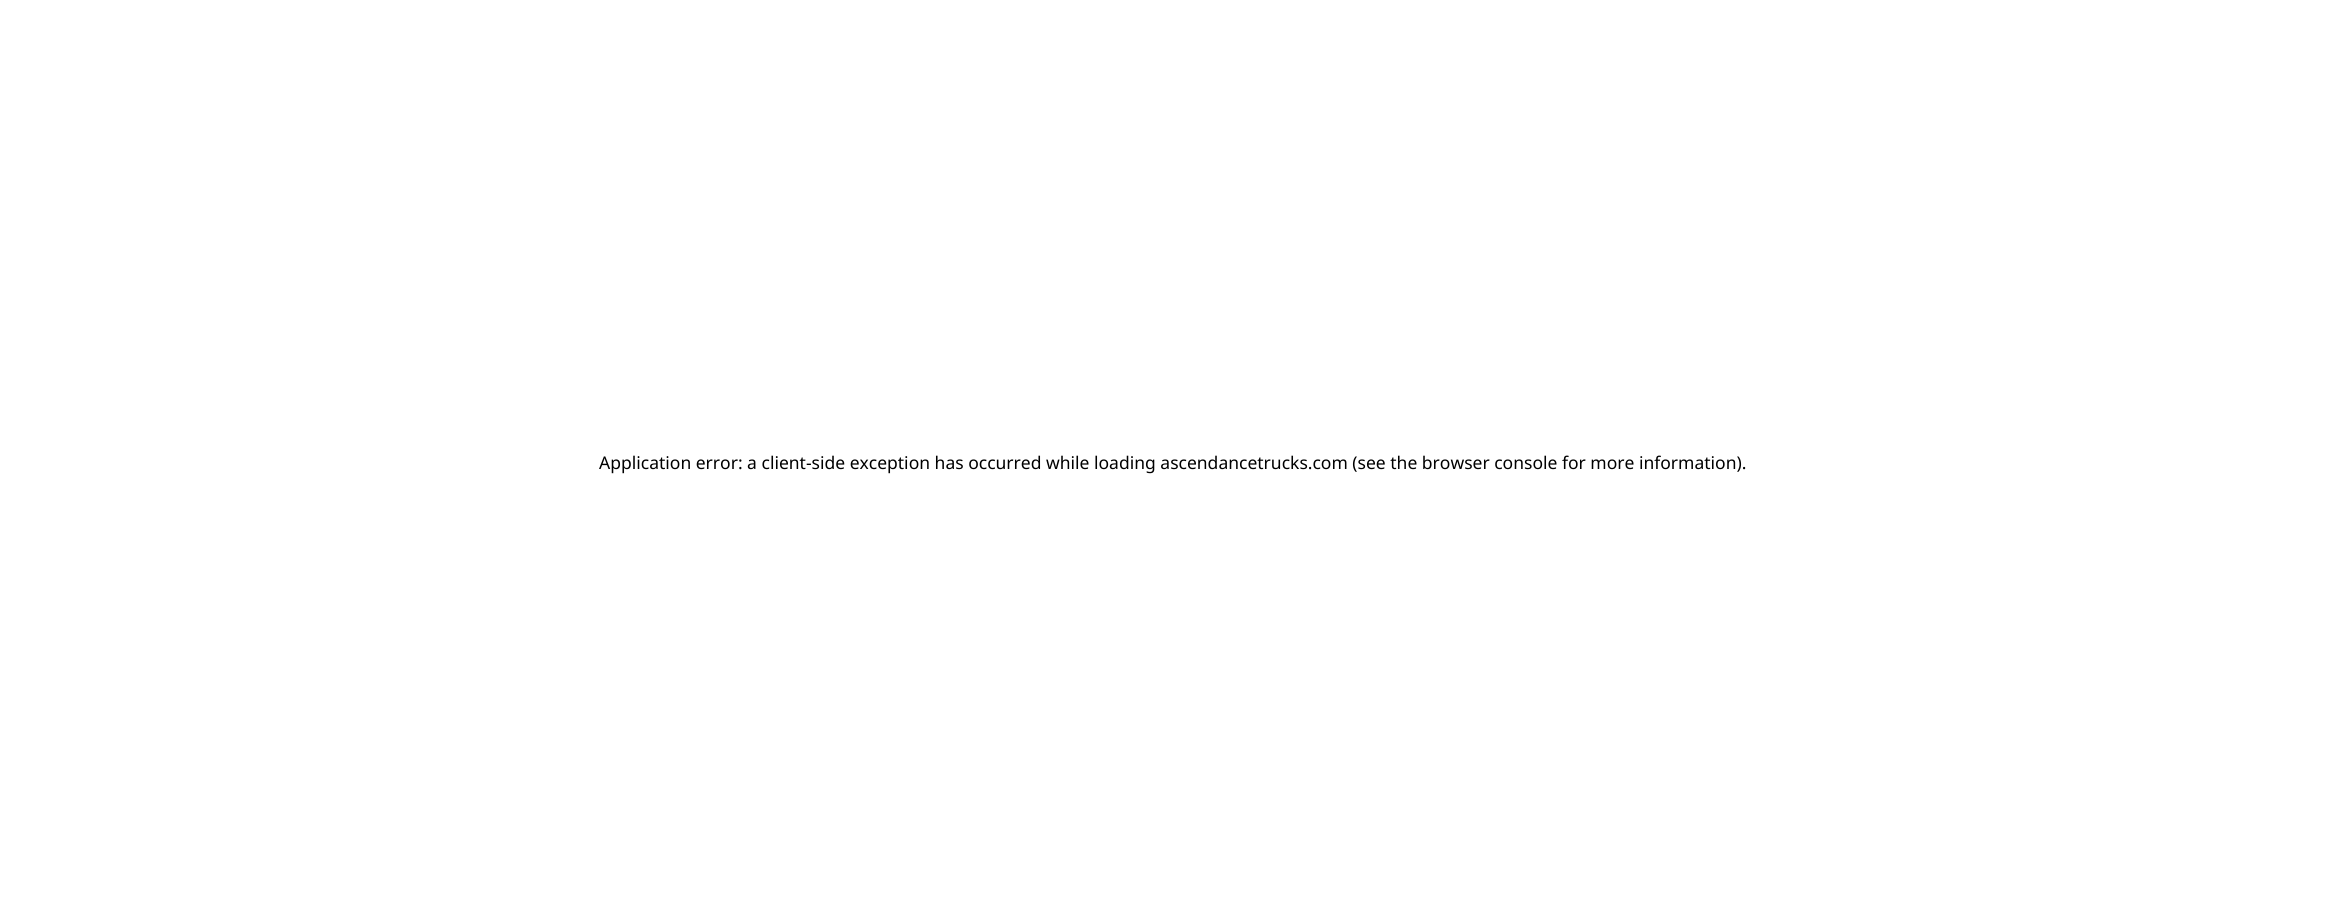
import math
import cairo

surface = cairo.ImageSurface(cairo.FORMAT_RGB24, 2346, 924)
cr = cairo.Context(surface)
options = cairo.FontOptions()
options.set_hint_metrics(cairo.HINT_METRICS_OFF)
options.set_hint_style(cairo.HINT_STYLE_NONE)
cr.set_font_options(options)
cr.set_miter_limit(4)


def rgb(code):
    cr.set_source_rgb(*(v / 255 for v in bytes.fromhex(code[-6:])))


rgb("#ffffff")
cr.paint()
cr.select_font_face("Noto Sans")
cr.set_font_size(17.5)
rgb("#000000")
cr.move_to(599, 469)
cr.show_text("Application error: a client-side exception has occurred while loading ascendancetrucks.com (see the browser console for more information).")
surface.write_to_png("page.png")
